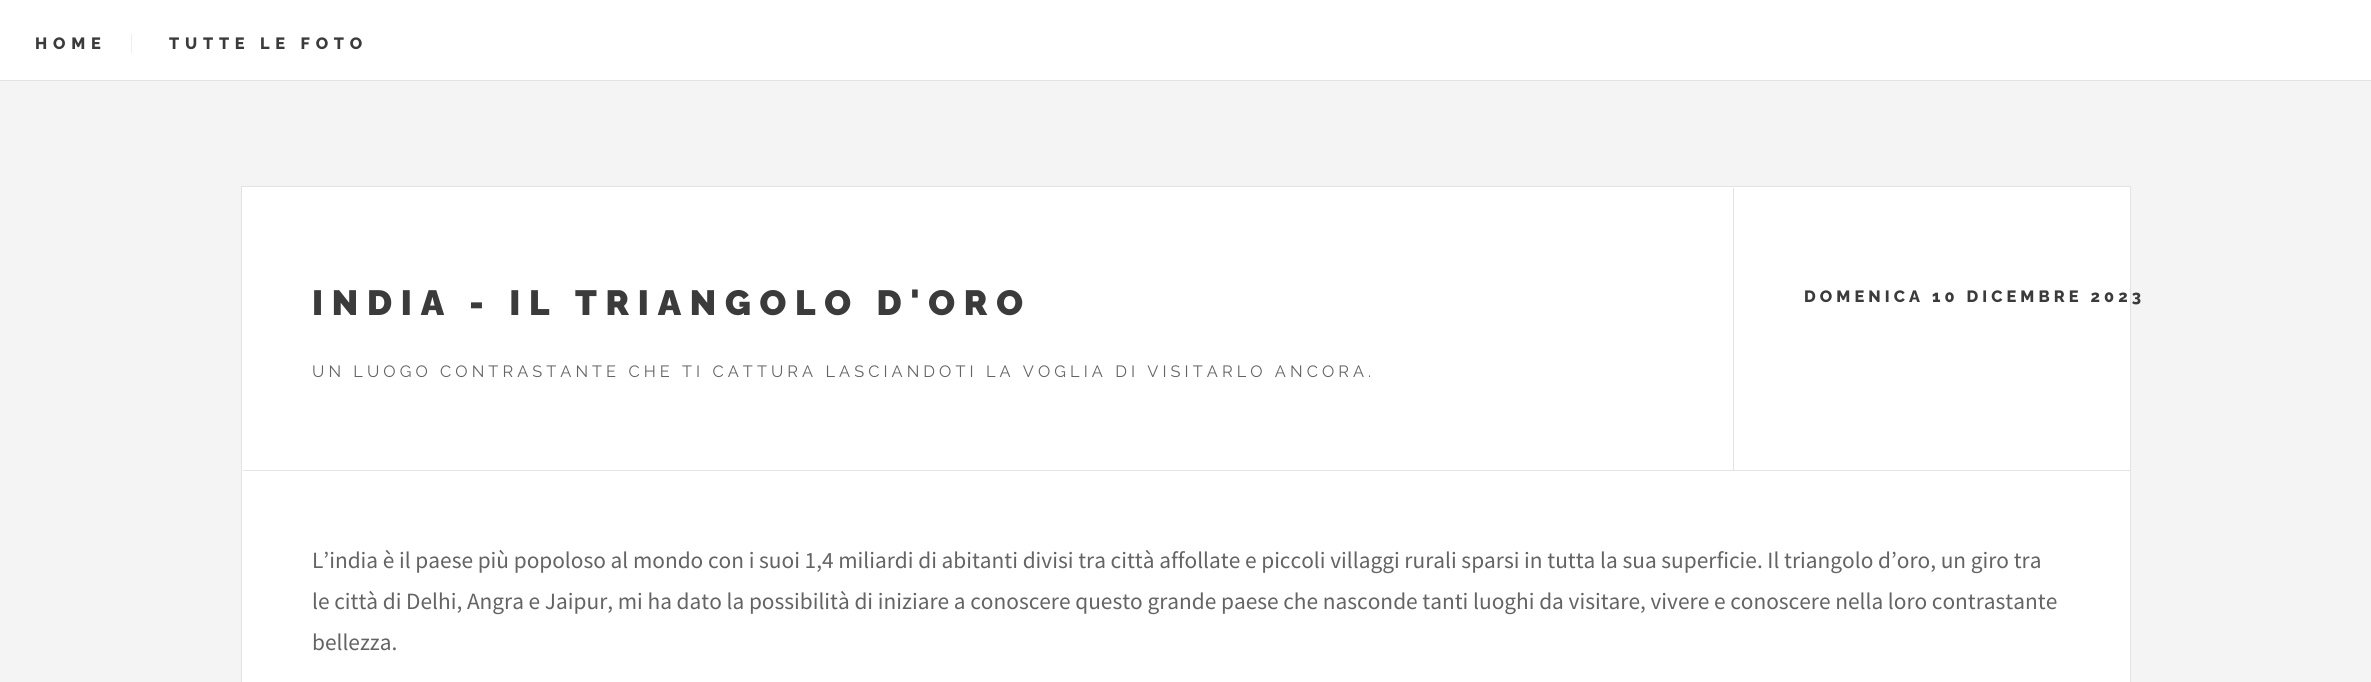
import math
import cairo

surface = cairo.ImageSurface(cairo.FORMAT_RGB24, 2371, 682)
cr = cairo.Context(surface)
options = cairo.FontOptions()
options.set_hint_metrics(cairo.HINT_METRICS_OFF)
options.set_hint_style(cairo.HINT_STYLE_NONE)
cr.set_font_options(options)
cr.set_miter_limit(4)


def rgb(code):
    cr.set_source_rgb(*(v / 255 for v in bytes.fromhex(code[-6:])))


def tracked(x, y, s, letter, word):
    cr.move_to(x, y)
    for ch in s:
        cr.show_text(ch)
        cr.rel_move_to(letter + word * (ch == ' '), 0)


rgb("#f4f4f4")
cr.paint()
for x, y, w, h, color in [
    (0, 0, 2371, 80, "#ffffff"),
    (0, 80, 2371, 1, "#e3e3e3"),
    (131, 34, 1, 19, "#eeeeee"),
]:
    rgb(color)
    cr.rectangle(x, y, w, h)
    cr.fill()
rgb("#ffffff")
cr.rectangle(241.5, 186.5, 1889, 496)
cr.fill_preserve()
rgb("#e3e3e3")
cr.set_line_width(1)
cr.stroke()
cr.rectangle(243, 470, 1887, 1)
cr.fill()
cr.rectangle(1733, 188, 1, 282)
cr.fill()
cr.select_font_face("Raleway ExtraBold")
cr.set_font_size(16.33)
rgb("#3c3b3b")
tracked(35, 49, "HOME", 5.8, 0)
tracked(169, 49, "TUTTE LE FOTO", 5.8, 0)
cr.select_font_face("Raleway Black")
cr.set_font_size(35)
tracked(312, 315, "INDIA - IL TRIANGOLO D'ORO", 8.75, 0)
cr.select_font_face("Raleway")
cr.set_font_size(16.33)
rgb("#646464")
tracked(312, 377, "UN LUOGO CONTRASTANTE CHE TI CATTURA LASCIANDOTI LA VOGLIA DI VISITARLO ANCORA.", 4.08, 0)
cr.select_font_face("Raleway ExtraBold")
rgb("#3c3b3b")
tracked(1804, 302, "DOMENICA 10 DICEMBRE 2023", 4.08, 0)
cr.select_font_face("Source Sans Pro")
cr.set_font_size(23.33)
rgb("#646464")
for x, y, s in [
    (312, 568, "L’india è il paese più popoloso al mondo con i suoi 1,4 miliardi di abitanti divisi tra città affollate e piccoli villaggi rurali sparsi in tutta la sua superficie. Il triangolo d’oro, un giro tra"),
    (312, 609, "le città di Delhi, Angra e Jaipur, mi ha dato la possibilità di iniziare a conoscere questo grande paese che nasconde tanti luoghi da visitare, vivere e conoscere nella loro contrastante"),
    (312, 650, "bellezza."),
]:
    cr.move_to(x, y)
    cr.show_text(s)
surface.write_to_png("page.png")
